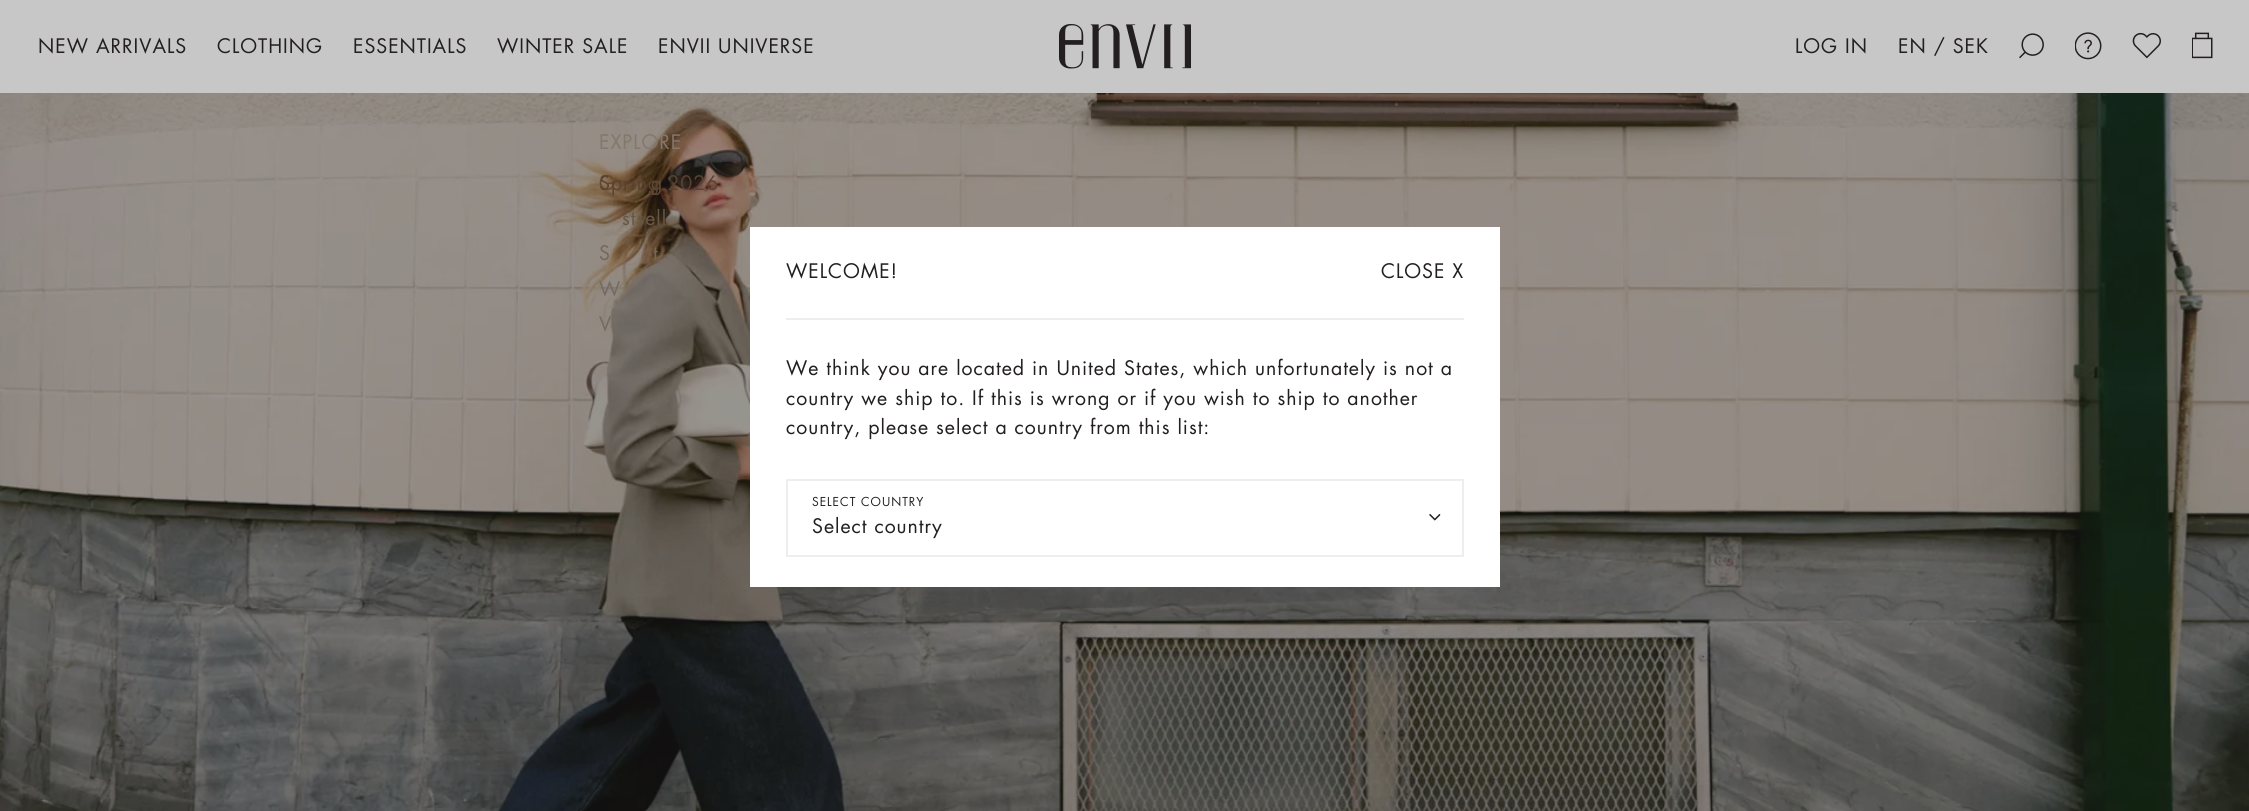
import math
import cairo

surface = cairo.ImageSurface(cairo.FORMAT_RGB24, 2249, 811)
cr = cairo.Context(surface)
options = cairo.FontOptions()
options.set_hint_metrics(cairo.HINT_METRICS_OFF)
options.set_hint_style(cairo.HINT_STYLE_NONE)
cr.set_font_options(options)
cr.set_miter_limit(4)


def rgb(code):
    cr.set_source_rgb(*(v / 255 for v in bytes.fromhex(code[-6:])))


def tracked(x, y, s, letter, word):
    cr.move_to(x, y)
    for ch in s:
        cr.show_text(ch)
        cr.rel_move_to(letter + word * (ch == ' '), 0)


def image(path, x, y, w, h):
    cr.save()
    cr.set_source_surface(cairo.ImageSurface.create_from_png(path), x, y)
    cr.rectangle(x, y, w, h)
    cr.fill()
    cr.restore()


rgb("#c8c7c7")
cr.paint()
image("img/1.png", 1059, 24, 132, 45)
image("img/2.png", 2019, 33, 25, 26)
image("img/3.png", 2075, 32, 27, 28)
image("img/4.png", 2132, 32, 29, 27)
image("img/5.png", 2192, 32, 21, 27)
image("img/6.png", 0, 93, 2249, 718)
rgb("#ffffff")
cr.rectangle(750, 227, 750, 360)
cr.fill()
rgb("#efedee")
cr.rectangle(786, 318, 678, 2)
cr.fill()
cr.rectangle(787, 480, 676, 76)
cr.stroke()
image("img/7.png", 1429, 513, 12, 8)
cr.select_font_face("Futura")
cr.set_font_size(19.5)
rgb("#231f20")
for x, y, s in [
    (38, 53, "NEW ARRIVALS"),
    (217, 53, "CLOTHING"),
    (353, 53, "ESSENTIALS"),
    (497, 53, "WINTER SALE"),
    (658, 53, "ENVII UNIVERSE"),
    (1795, 53, "LOG IN"),
    (1898, 53, "EN / SEK"),
]:
    tracked(x, y, s, 0.98, 0)
rgb("#84776b")
tracked(599, 149, "EXPLORE", 0.98, 0)
rgb("#614931")
tracked(599, 190, "G", 0.98, 0)
tracked(651, 190, "g", 0.98, 0)
rgb("#675746")
tracked(622, 225, "stsell", 0.98, 0)
rgb("#786656")
tracked(599, 260, "S", 0.98, 0)
tracked(653, 260, "t", 0.98, 0)
rgb("#736b62")
tracked(599, 296, "W", 0.98, 0)
tracked(599, 331, "V", 0.98, 0)
rgb("#584231")
tracked(599, 190, "Spring 2026", 0.98, 0)
rgb("#231f20")
for x, y, s in [
    (786, 278, "WELCOME!"),
    (1381, 278, "CLOSE X"),
    (786, 375, "We think you are located in United States, which unfortunately is not a"),
    (786, 405, "country we ship to. If this is wrong or if you wish to ship to another"),
    (786, 434, "country, please select a country from this list:"),
]:
    tracked(x, y, s, 0.98, 0)
cr.set_font_size(12)
tracked(812, 506, "SELECT COUNTRY", 1, 0)
cr.set_font_size(19.5)
tracked(812, 533, "Select country", 0.98, 0)
surface.write_to_png("page.png")
